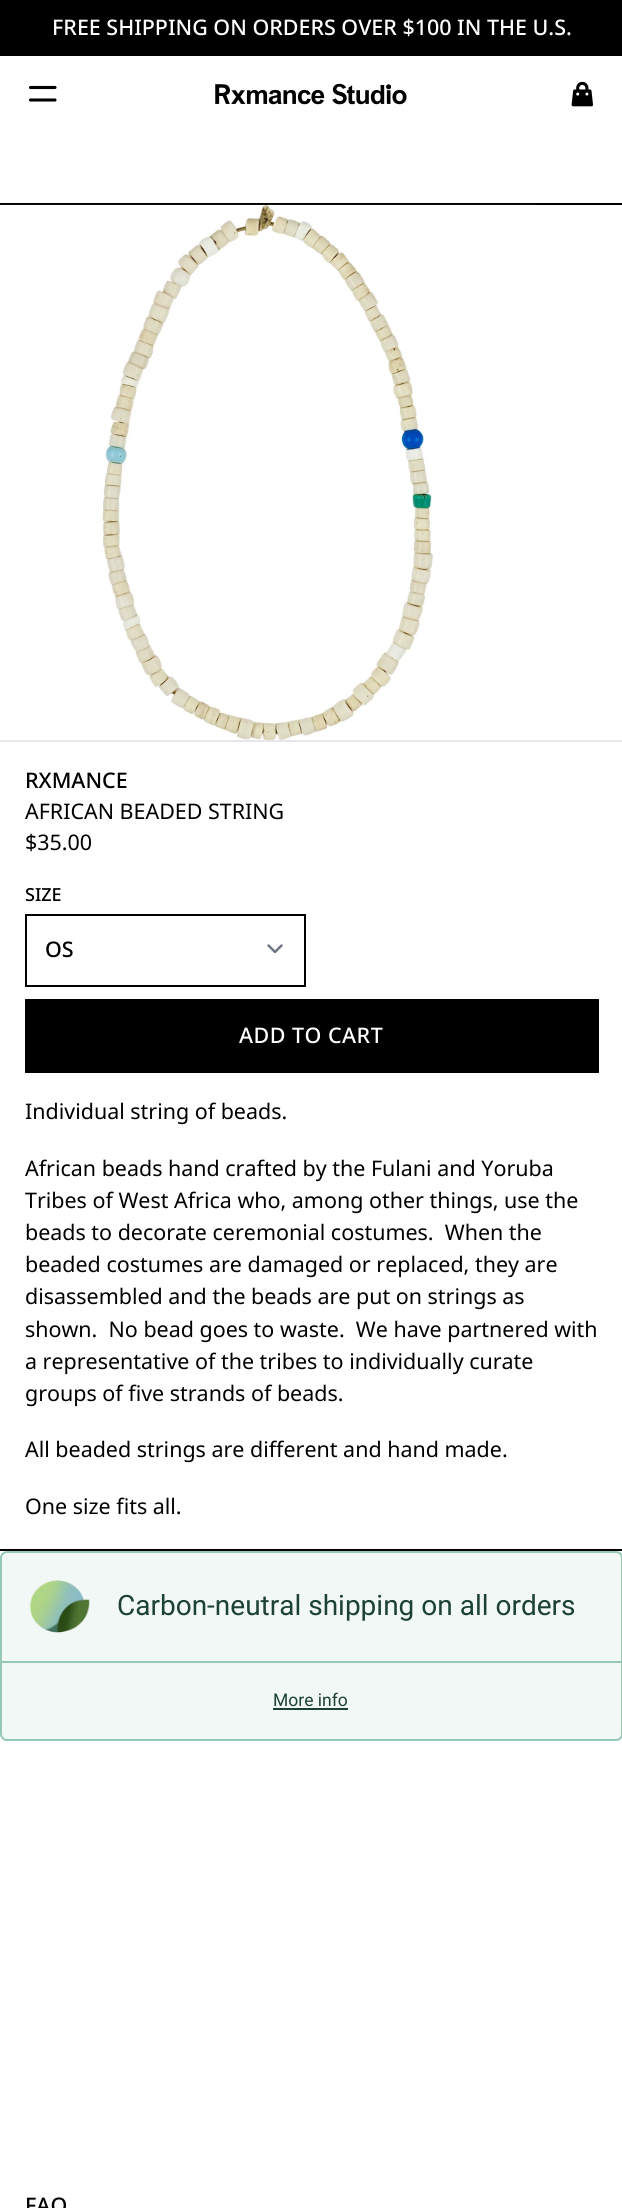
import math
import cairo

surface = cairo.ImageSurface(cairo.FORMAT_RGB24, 622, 2208)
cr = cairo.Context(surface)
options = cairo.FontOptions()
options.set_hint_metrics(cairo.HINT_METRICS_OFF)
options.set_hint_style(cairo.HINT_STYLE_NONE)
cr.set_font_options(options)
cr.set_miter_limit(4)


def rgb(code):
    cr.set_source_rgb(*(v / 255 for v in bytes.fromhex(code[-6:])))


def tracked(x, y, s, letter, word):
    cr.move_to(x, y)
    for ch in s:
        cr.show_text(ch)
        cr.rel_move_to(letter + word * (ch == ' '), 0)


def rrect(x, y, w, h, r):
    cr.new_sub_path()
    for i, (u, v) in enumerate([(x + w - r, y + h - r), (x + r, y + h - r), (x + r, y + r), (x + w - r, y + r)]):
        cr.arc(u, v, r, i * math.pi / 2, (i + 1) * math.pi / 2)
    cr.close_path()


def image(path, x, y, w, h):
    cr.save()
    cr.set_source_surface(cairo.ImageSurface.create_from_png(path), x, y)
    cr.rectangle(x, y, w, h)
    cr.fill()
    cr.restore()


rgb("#ffffff")
cr.paint()
rgb("#000000")
cr.rectangle(0, 0, 622, 56)
cr.fill()
cr.new_path()
cr.move_to(30.5, 87.5)
cr.line_to(55, 87.5)
cr.move_to(30.5, 100)
cr.line_to(55, 100)
cr.set_line_width(3.1)
cr.set_line_cap(cairo.LINE_CAP_ROUND)
cr.set_line_join(cairo.LINE_JOIN_ROUND)
cr.stroke()
image("img/1.png", 215, 83, 192, 22)
image("img/2.png", 571, 81, 22, 26)
cr.rectangle(0, 203, 622, 2)
cr.fill()
rgb("#e5e7eb")
cr.rectangle(0, 740, 622, 2)
cr.fill()
image("img/3.png", 0, 204, 536, 536)
rgb("#000000")
cr.rectangle(0, 1549, 622, 2)
cr.fill()
cr.new_path()
cr.move_to(268.5, 945.5)
cr.line_to(275, 952)
cr.line_to(281.5, 945.5)
rgb("#6b7280")
cr.set_line_width(2.4)
cr.stroke()
cr.rectangle(26, 915, 279, 71)
rgb("#000000")
cr.set_line_width(2)
cr.set_line_cap(cairo.LINE_CAP_BUTT)
cr.set_line_join(cairo.LINE_JOIN_MITER)
cr.stroke()
cr.rectangle(25, 999, 574, 74)
cr.fill()
rgb("#f1f8f5")
rrect(1, 1552, 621, 188, 6)
cr.fill_preserve()
rgb("#95c9b4")
cr.stroke()
cr.rectangle(2, 1661, 619, 2)
cr.fill()
image("img/4.png", 29, 1580, 61, 53)
rgb("#1d4136")
cr.rectangle(273, 1708, 75, 2)
cr.fill()
cr.select_font_face("Noto Sans Medium")
cr.set_font_size(21.45)
rgb("#ffffff")
cr.move_to(52, 35)
cr.show_text("FREE SHIPPING ON ORDERS OVER $100 IN THE U.S.")
rgb("#000000")
cr.move_to(25, 788)
cr.show_text("RXMANCE")
cr.select_font_face("Noto Sans")
cr.move_to(25, 819)
cr.show_text("AFRICAN BEADED STRING")
cr.move_to(25, 850)
cr.show_text("$35.00")
cr.select_font_face("Noto Sans Medium")
cr.set_font_size(18)
cr.move_to(25, 901)
cr.show_text("SIZE")
cr.set_font_size(21.45)
cr.move_to(45, 957)
cr.show_text("OS")
rgb("#ffffff")
tracked(239, 1043, "ADD TO CART", 0.5, 0)
cr.select_font_face("Noto Sans")
rgb("#000000")
for x, y, s in [
    (25, 1119, "Individual string of beads."),
    (25, 1176, "African beads hand crafted by the Fulani and Yoruba"),
    (25, 1208, "Tribes of West Africa who, among other things, use the"),
    (25, 1240, "beads to decorate ceremonial costumes.  When the"),
    (25, 1272, "beaded costumes are damaged or replaced, they are"),
    (25, 1304, "disassembled and the beads are put on strings as"),
    (25, 1337, "shown.  No bead goes to waste.  We have partnered with"),
    (25, 1369, "a representative of the tribes to individually curate"),
    (25, 1401, "groups of five strands of beads."),
    (25, 1457, "All beaded strings are different and hand made."),
    (25, 1514, "One size fits all."),
]:
    cr.move_to(x, y)
    cr.show_text(s)
cr.select_font_face("Roboto")
cr.set_font_size(28)
rgb("#1d4136")
cr.move_to(117, 1615)
cr.show_text("Carbon-neutral shipping on all orders")
cr.set_font_size(17.5)
cr.move_to(273, 1706)
cr.show_text("More info")
cr.select_font_face("Noto Sans Medium")
cr.set_font_size(21.45)
rgb("#000000")
cr.move_to(25, 2213)
cr.show_text("FAQ")
surface.write_to_png("page.png")
